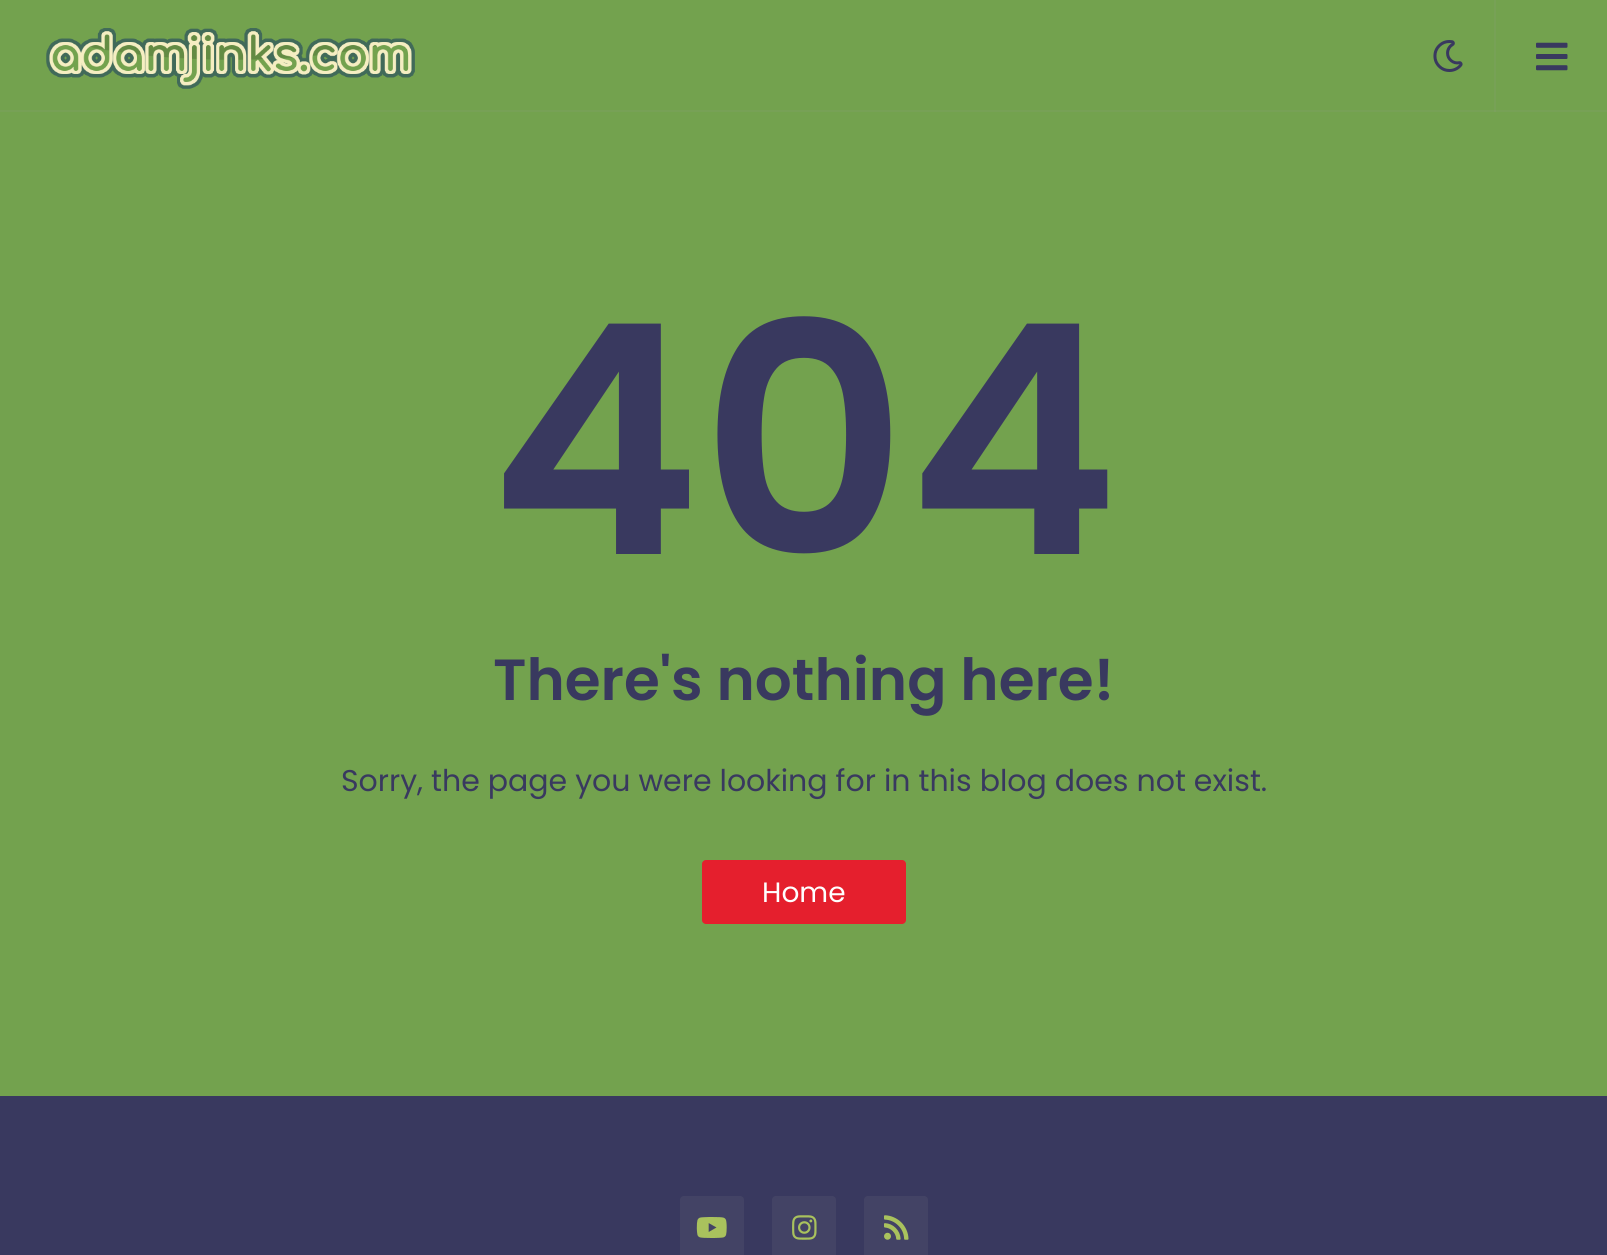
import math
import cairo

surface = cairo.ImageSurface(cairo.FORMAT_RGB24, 1607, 1255)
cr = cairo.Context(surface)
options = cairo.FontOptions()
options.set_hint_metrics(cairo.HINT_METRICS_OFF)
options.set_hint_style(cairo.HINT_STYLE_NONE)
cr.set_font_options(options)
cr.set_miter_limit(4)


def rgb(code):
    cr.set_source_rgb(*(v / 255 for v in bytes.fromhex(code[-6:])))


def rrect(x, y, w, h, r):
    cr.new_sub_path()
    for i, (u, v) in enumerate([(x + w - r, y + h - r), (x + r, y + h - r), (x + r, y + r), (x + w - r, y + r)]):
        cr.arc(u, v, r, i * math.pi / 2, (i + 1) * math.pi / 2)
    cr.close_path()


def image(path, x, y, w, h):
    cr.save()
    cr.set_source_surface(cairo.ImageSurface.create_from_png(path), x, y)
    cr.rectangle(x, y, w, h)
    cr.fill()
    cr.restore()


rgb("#73a24e")
cr.paint()
for x, y, w, h, color in [
    (1494, 0, 2, 112, "#77a156"),
    (0, 110, 1607, 2, "#77a156"),
    (1494, 110, 2, 2, "#7ba05d"),
]:
    rgb(color)
    cr.rectangle(x, y, w, h)
    cr.fill()
image("img/1.png", 46, 28, 369, 61)
image("img/2.png", 1433, 40, 30, 32)
image("img/3.png", 1536, 42, 32, 29)
rgb("#e51f2d")
rrect(702, 860, 204, 64, 4)
cr.fill()
rgb("#39395f")
cr.rectangle(0, 1096, 1607, 159)
cr.fill()
rgb("#434365")
rrect(680, 1196, 64, 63, 4)
cr.fill()
image("img/4.png", 696, 1217, 31, 21)
rrect(772, 1196, 64, 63, 4)
cr.fill()
image("img/5.png", 792, 1215, 25, 25)
rrect(864, 1196, 64, 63, 4)
cr.fill()
image("img/6.png", 884, 1215, 25, 25)
cr.select_font_face("Poppins SemiBold")
cr.set_font_size(320)
rgb("#39395f")
cr.move_to(489, 554)
cr.show_text("404")
cr.set_font_size(58)
cr.move_to(493, 700)
cr.show_text("There's nothing here!")
cr.select_font_face("Poppins")
cr.set_font_size(30)
cr.move_to(341, 791)
cr.show_text("Sorry, the page you were looking for in this blog does not exist.")
cr.set_font_size(28)
rgb("#ffffff")
cr.move_to(762, 902)
cr.show_text("Home")
surface.write_to_png("page.png")
